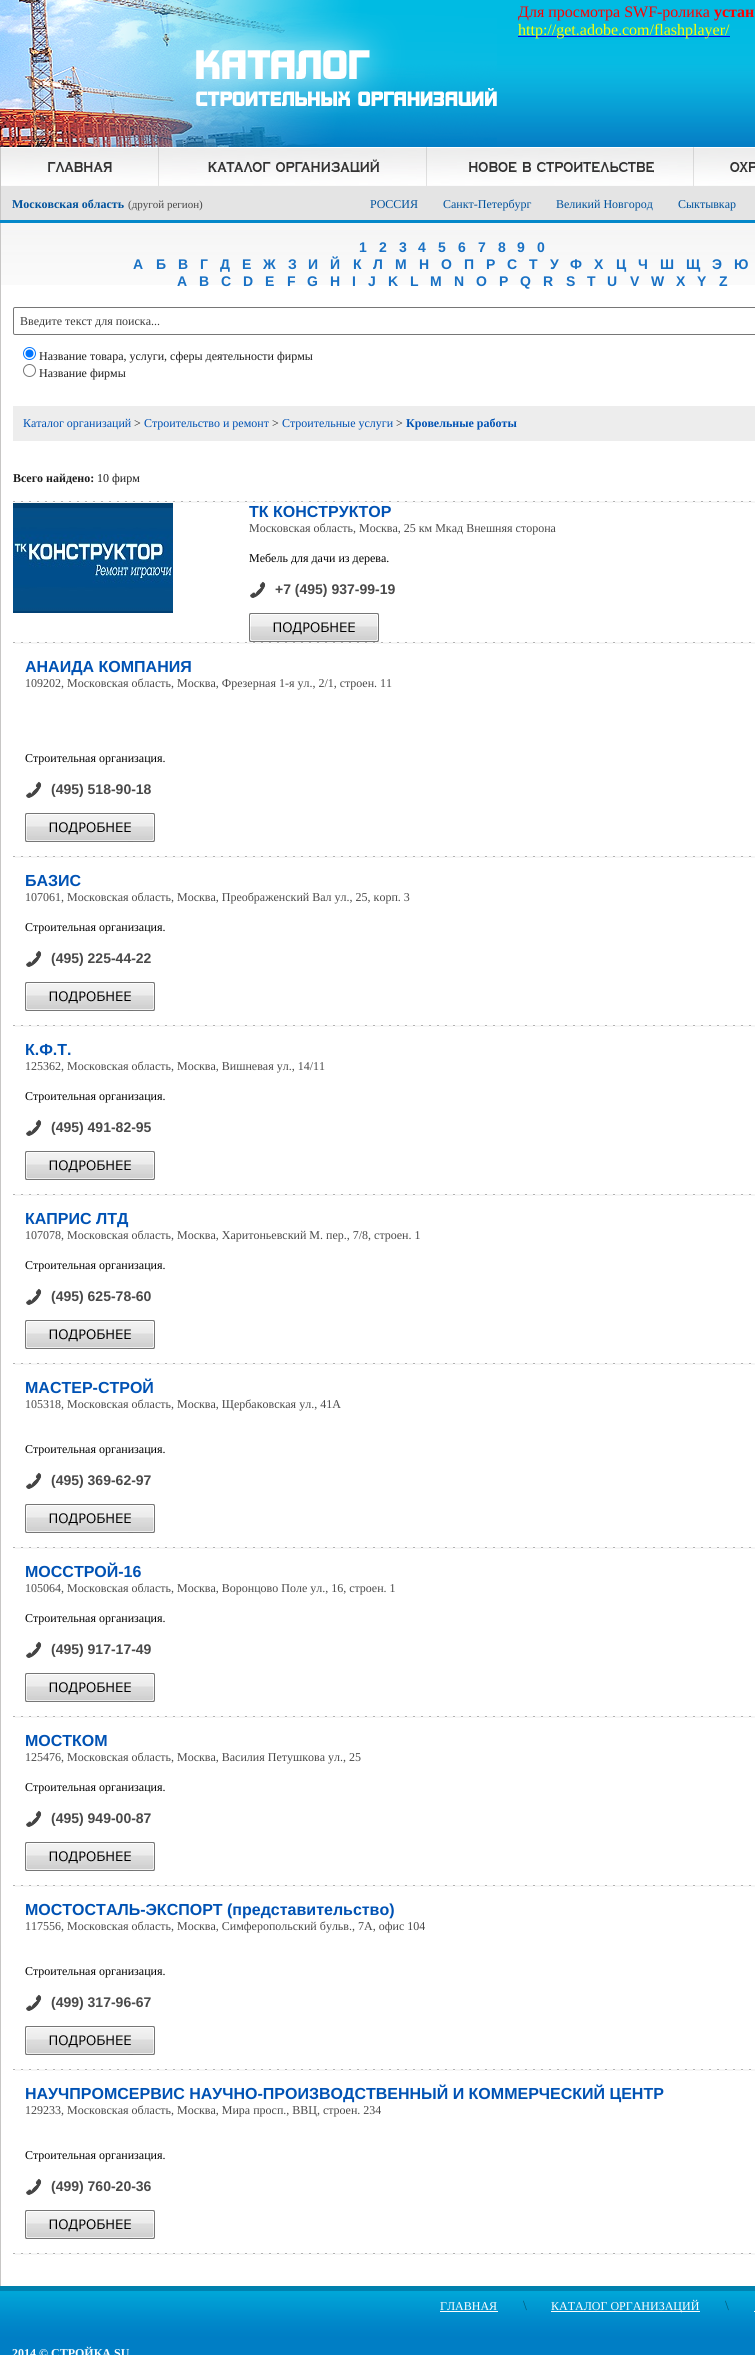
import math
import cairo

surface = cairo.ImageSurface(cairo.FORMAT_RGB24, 755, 2355)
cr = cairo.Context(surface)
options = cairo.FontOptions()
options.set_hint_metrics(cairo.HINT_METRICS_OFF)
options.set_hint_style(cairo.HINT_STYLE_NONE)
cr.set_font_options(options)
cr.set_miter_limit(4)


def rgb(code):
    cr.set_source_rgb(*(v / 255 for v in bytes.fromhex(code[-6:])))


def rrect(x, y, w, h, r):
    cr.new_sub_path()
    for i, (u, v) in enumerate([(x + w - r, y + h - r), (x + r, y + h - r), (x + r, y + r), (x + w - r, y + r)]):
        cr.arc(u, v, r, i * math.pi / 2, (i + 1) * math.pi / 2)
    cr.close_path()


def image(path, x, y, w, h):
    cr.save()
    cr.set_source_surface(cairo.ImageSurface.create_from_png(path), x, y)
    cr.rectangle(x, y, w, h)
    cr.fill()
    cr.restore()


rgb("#ffffff")
cr.paint()
image("img/1.png", 497, 0, 258, 147)
image("img/2.png", 0, 0, 497, 147)
rgb("#0000ee")
cr.rectangle(518, 36, 212, 1)
cr.fill()
rgb("#c7c6c5")
cr.rectangle(0, 147, 1, 39)
cr.fill()
image("img/3.png", 1, 147, 157, 39)
image("img/4.png", 158, 147, 1, 39)
image("img/5.png", 159, 147, 267, 39)
image("img/4.png", 426, 147, 1, 39)
image("img/6.png", 427, 147, 266, 39)
image("img/4.png", 693, 147, 1, 39)
image("img/7.png", 694, 147, 61, 39)
image("img/8.png", 0, 186, 755, 37)
image("img/9.png", 1, 223, 754, 62)
cr.rectangle(0, 223, 1, 2063)
cr.fill()
rrect(13.5, 307.5, 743, 27, 1.5)
rgb("#767676")
cr.set_line_width(1)
cr.stroke()
cr.arc(29.5, 353.5, 6, 0, 2 * math.pi)
rgb("#0075ff")
cr.stroke()
cr.arc(29.5, 353.5, 4, 0, 2 * math.pi)
cr.fill()
cr.arc(29.5, 370.5, 6, 0, 2 * math.pi)
rgb("#767676")
cr.stroke()
rgb("#ededed")
cr.rectangle(13, 406, 742, 35)
cr.fill()
image("img/10.png", 13, 501, 742, 2)
image("img/11.png", 13, 503, 160, 110)
image("img/12.png", 250, 581, 16, 17)
image("img/13.png", 249, 613, 130, 29)
image("img/10.png", 13, 642, 742, 2)
image("img/12.png", 26, 781, 16, 17)
image("img/13.png", 25, 813, 130, 29)
image("img/10.png", 13, 856, 742, 2)
image("img/12.png", 26, 950, 16, 17)
image("img/13.png", 25, 982, 130, 29)
image("img/10.png", 13, 1025, 742, 2)
image("img/12.png", 26, 1119, 16, 17)
image("img/13.png", 25, 1151, 130, 29)
image("img/10.png", 13, 1194, 742, 2)
image("img/12.png", 26, 1288, 16, 17)
image("img/13.png", 25, 1320, 130, 29)
image("img/10.png", 13, 1363, 742, 2)
image("img/12.png", 26, 1472, 16, 17)
image("img/13.png", 25, 1504, 130, 29)
image("img/10.png", 13, 1547, 742, 2)
image("img/12.png", 26, 1641, 16, 17)
image("img/13.png", 25, 1673, 130, 29)
image("img/10.png", 13, 1716, 742, 2)
image("img/12.png", 26, 1810, 16, 17)
image("img/13.png", 25, 1842, 130, 29)
image("img/10.png", 13, 1885, 742, 2)
image("img/12.png", 26, 1994, 16, 17)
image("img/13.png", 25, 2026, 130, 29)
image("img/10.png", 13, 2069, 742, 2)
image("img/12.png", 26, 2178, 16, 17)
image("img/13.png", 25, 2210, 130, 29)
image("img/10.png", 13, 2253, 742, 2)
image("img/14.png", 0, 2286, 755, 69)
for x, y, w, h, color in [
    (440, 2311, 58, 1, "#ffffff"),
    (551, 2311, 149, 1, "#ffffff"),
    (754, 2311, 1, 1, "#ffffff"),
]:
    rgb(color)
    cr.rectangle(x, y, w, h)
    cr.fill()
cr.select_font_face("Liberation Serif")
cr.set_font_size(16)
rgb("#ff0000")
cr.move_to(518, 17)
cr.show_text("Для просмотра SWF-ролика")
cr.select_font_face("Liberation Serif", cairo.FONT_SLANT_NORMAL, cairo.FONT_WEIGHT_BOLD)
cr.move_to(714, 17)
cr.show_text("устан")
cr.select_font_face("Liberation Serif")
rgb("#ffff00")
cr.move_to(518, 35)
cr.show_text("http://get.adobe.com/flashplayer/")
cr.select_font_face("Liberation Serif", cairo.FONT_SLANT_NORMAL, cairo.FONT_WEIGHT_BOLD)
cr.set_font_size(12)
rgb("#00529c")
cr.move_to(12, 208)
cr.show_text("Московская область")
cr.select_font_face("Liberation Serif")
cr.set_font_size(11)
rgb("#494949")
cr.move_to(128, 208)
cr.show_text("(другой регион)")
cr.set_font_size(12)
rgb("#00529c")
for x, y, s in [
    (370, 208, "РОССИЯ"),
    (443, 208, "Санкт-Петербург"),
    (556, 208, "Великий Новгород"),
    (678, 208, "Сыктывкар"),
]:
    cr.move_to(x, y)
    cr.show_text(s)
cr.select_font_face("Liberation Sans", cairo.FONT_SLANT_NORMAL, cairo.FONT_WEIGHT_BOLD)
cr.set_font_size(14)
rgb("#1971c4")
for x, y, s in [
    (359, 252, "1"),
    (379, 252, "2"),
    (399, 252, "3"),
    (418, 252, "4"),
    (438, 252, "5"),
    (458, 252, "6"),
    (478, 252, "7"),
    (498, 252, "8"),
    (517, 252, "9"),
    (537, 252, "0"),
    (133, 269, "А"),
    (156, 269, "Б"),
    (178, 269, "В"),
    (200, 269, "Г"),
    (220, 269, "Д"),
    (242, 269, "Е"),
    (263, 269, "Ж"),
    (288, 269, "З"),
    (308, 269, "И"),
    (330, 269, "Й"),
    (353, 269, "К"),
    (373, 269, "Л"),
    (395, 269, "М"),
    (419, 269, "Н"),
    (441, 269, "О"),
    (464, 269, "П"),
    (486, 269, "Р"),
    (507, 269, "С"),
    (529, 269, "Т"),
    (550, 269, "У"),
    (570, 269, "Ф"),
    (594, 269, "Х"),
    (616, 269, "Ц"),
    (638, 269, "Ч"),
    (660, 269, "Ш"),
    (686, 269, "Щ"),
    (712, 269, "Э"),
    (734, 269, "Ю"),
    (177, 286, "A"),
    (199, 286, "B"),
    (221, 286, "C"),
    (243, 286, "D"),
    (265, 286, "E"),
    (287, 286, "F"),
    (307, 286, "G"),
    (330, 286, "H"),
    (352, 286, "I"),
    (368, 286, "J"),
    (388, 286, "K"),
    (410, 286, "L"),
    (430, 286, "M"),
    (454, 286, "N"),
    (476, 286, "O"),
    (499, 286, "P"),
    (520, 286, "Q"),
    (543, 286, "R"),
    (566, 286, "S"),
    (587, 286, "T"),
    (607, 286, "U"),
    (630, 286, "V"),
    (651, 286, "W"),
    (676, 286, "X"),
    (697, 286, "Y"),
    (719, 286, "Z"),
]:
    cr.move_to(x, y)
    cr.show_text(s)
cr.select_font_face("Liberation Serif")
cr.set_font_size(12)
rgb("#3a3a3a")
cr.move_to(20, 325)
cr.show_text("Введите текст для поиска...")
rgb("#1d1d1d")
cr.move_to(39, 360)
cr.show_text("Название товара, услуги, сферы деятельности фирмы")
cr.move_to(39, 377)
cr.show_text("Название фирмы")
rgb("#0052b4")
cr.move_to(23, 427)
cr.show_text("Каталог организаций")
rgb("#1d1d1d")
cr.move_to(134, 427)
cr.show_text(">")
rgb("#0052b4")
cr.move_to(144, 427)
cr.show_text("Строительство и ремонт")
rgb("#1d1d1d")
cr.move_to(272, 427)
cr.show_text(">")
rgb("#0052b4")
cr.move_to(282, 427)
cr.show_text("Строительные услуги")
rgb("#1d1d1d")
cr.move_to(396, 427)
cr.show_text(">")
cr.select_font_face("Liberation Serif", cairo.FONT_SLANT_NORMAL, cairo.FONT_WEIGHT_BOLD)
rgb("#0052b4")
cr.move_to(406, 427)
cr.show_text("Кровельные работы")
rgb("#1d1d1d")
cr.move_to(13, 482)
cr.show_text("Всего найдено:")
cr.select_font_face("Liberation Serif")
cr.move_to(97, 482)
cr.show_text("10 фирм")
cr.select_font_face("Liberation Sans", cairo.FONT_SLANT_NORMAL, cairo.FONT_WEIGHT_BOLD)
cr.set_font_size(16)
rgb("#0052b4")
cr.move_to(249, 517)
cr.show_text("ТК КОНСТРУКТОР")
cr.select_font_face("Liberation Serif")
cr.set_font_size(12)
rgb("#494949")
cr.move_to(249, 532)
cr.show_text("Московская область, Москва, 25 км Мкад Внешняя сторона")
rgb("#000000")
cr.move_to(249, 562)
cr.show_text("Мебель для дачи из дерева.")
cr.select_font_face("Liberation Sans", cairo.FONT_SLANT_NORMAL, cairo.FONT_WEIGHT_BOLD)
cr.set_font_size(14)
rgb("#494949")
cr.move_to(275, 594)
cr.show_text("+7 (495) 937-99-19")
cr.set_font_size(16)
rgb("#0052b4")
cr.move_to(25, 672)
cr.show_text("АНАИДА КОМПАНИЯ")
cr.select_font_face("Liberation Serif")
cr.set_font_size(12)
rgb("#494949")
cr.move_to(25, 687)
cr.show_text("109202, Московская область, Москва, Фрезерная 1-я ул., 2/1, строен. 11")
rgb("#000000")
cr.move_to(25, 762)
cr.show_text("Строительная организация.")
cr.select_font_face("Liberation Sans", cairo.FONT_SLANT_NORMAL, cairo.FONT_WEIGHT_BOLD)
cr.set_font_size(14)
rgb("#494949")
cr.move_to(51, 794)
cr.show_text("(495) 518-90-18")
cr.set_font_size(16)
rgb("#0052b4")
cr.move_to(25, 886)
cr.show_text("БАЗИС")
cr.select_font_face("Liberation Serif")
cr.set_font_size(12)
rgb("#494949")
cr.move_to(25, 901)
cr.show_text("107061, Московская область, Москва, Преображенский Вал ул., 25, корп. 3")
rgb("#000000")
cr.move_to(25, 931)
cr.show_text("Строительная организация.")
cr.select_font_face("Liberation Sans", cairo.FONT_SLANT_NORMAL, cairo.FONT_WEIGHT_BOLD)
cr.set_font_size(14)
rgb("#494949")
cr.move_to(51, 963)
cr.show_text("(495) 225-44-22")
cr.set_font_size(16)
rgb("#0052b4")
cr.move_to(25, 1055)
cr.show_text("К.Ф.Т.")
cr.select_font_face("Liberation Serif")
cr.set_font_size(12)
rgb("#494949")
cr.move_to(25, 1070)
cr.show_text("125362, Московская область, Москва, Вишневая ул., 14/11")
rgb("#000000")
cr.move_to(25, 1100)
cr.show_text("Строительная организация.")
cr.select_font_face("Liberation Sans", cairo.FONT_SLANT_NORMAL, cairo.FONT_WEIGHT_BOLD)
cr.set_font_size(14)
rgb("#494949")
cr.move_to(51, 1132)
cr.show_text("(495) 491-82-95")
cr.set_font_size(16)
rgb("#0052b4")
cr.move_to(25, 1224)
cr.show_text("КАПРИС ЛТД")
cr.select_font_face("Liberation Serif")
cr.set_font_size(12)
rgb("#494949")
cr.move_to(25, 1239)
cr.show_text("107078, Московская область, Москва, Харитоньевский М. пер., 7/8, строен. 1")
rgb("#000000")
cr.move_to(25, 1269)
cr.show_text("Строительная организация.")
cr.select_font_face("Liberation Sans", cairo.FONT_SLANT_NORMAL, cairo.FONT_WEIGHT_BOLD)
cr.set_font_size(14)
rgb("#494949")
cr.move_to(51, 1301)
cr.show_text("(495) 625-78-60")
cr.set_font_size(16)
rgb("#0052b4")
cr.move_to(25, 1393)
cr.show_text("МАСТЕР-СТРОЙ")
cr.select_font_face("Liberation Serif")
cr.set_font_size(12)
rgb("#494949")
cr.move_to(25, 1408)
cr.show_text("105318, Московская область, Москва, Щербаковская ул., 41А")
rgb("#000000")
cr.move_to(25, 1453)
cr.show_text("Строительная организация.")
cr.select_font_face("Liberation Sans", cairo.FONT_SLANT_NORMAL, cairo.FONT_WEIGHT_BOLD)
cr.set_font_size(14)
rgb("#494949")
cr.move_to(51, 1485)
cr.show_text("(495) 369-62-97")
cr.set_font_size(16)
rgb("#0052b4")
cr.move_to(25, 1577)
cr.show_text("МОССТРОЙ-16")
cr.select_font_face("Liberation Serif")
cr.set_font_size(12)
rgb("#494949")
cr.move_to(25, 1592)
cr.show_text("105064, Московская область, Москва, Воронцово Поле ул., 16, строен. 1")
rgb("#000000")
cr.move_to(25, 1622)
cr.show_text("Строительная организация.")
cr.select_font_face("Liberation Sans", cairo.FONT_SLANT_NORMAL, cairo.FONT_WEIGHT_BOLD)
cr.set_font_size(14)
rgb("#494949")
cr.move_to(51, 1654)
cr.show_text("(495) 917-17-49")
cr.set_font_size(16)
rgb("#0052b4")
cr.move_to(25, 1746)
cr.show_text("МОСТКОМ")
cr.select_font_face("Liberation Serif")
cr.set_font_size(12)
rgb("#494949")
cr.move_to(25, 1761)
cr.show_text("125476, Московская область, Москва, Василия Петушкова ул., 25")
rgb("#000000")
cr.move_to(25, 1791)
cr.show_text("Строительная организация.")
cr.select_font_face("Liberation Sans", cairo.FONT_SLANT_NORMAL, cairo.FONT_WEIGHT_BOLD)
cr.set_font_size(14)
rgb("#494949")
cr.move_to(51, 1823)
cr.show_text("(495) 949-00-87")
cr.set_font_size(16)
rgb("#0052b4")
cr.move_to(25, 1915)
cr.show_text("МОСТОСТАЛЬ-ЭКСПОРТ (представительство)")
cr.select_font_face("Liberation Serif")
cr.set_font_size(12)
rgb("#494949")
cr.move_to(25, 1930)
cr.show_text("117556, Московская область, Москва, Симферопольский бульв., 7А, офис 104")
rgb("#000000")
cr.move_to(25, 1975)
cr.show_text("Строительная организация.")
cr.select_font_face("Liberation Sans", cairo.FONT_SLANT_NORMAL, cairo.FONT_WEIGHT_BOLD)
cr.set_font_size(14)
rgb("#494949")
cr.move_to(51, 2007)
cr.show_text("(499) 317-96-67")
cr.set_font_size(16)
rgb("#0052b4")
cr.move_to(25, 2099)
cr.show_text("НАУЧПРОМСЕРВИС НАУЧНО-ПРОИЗВОДСТВЕННЫЙ И КОММЕРЧЕСКИЙ ЦЕНТР")
cr.select_font_face("Liberation Serif")
cr.set_font_size(12)
rgb("#494949")
cr.move_to(25, 2114)
cr.show_text("129233, Московская область, Москва, Мира просп., ВВЦ, строен. 234")
rgb("#000000")
cr.move_to(25, 2159)
cr.show_text("Строительная организация.")
cr.select_font_face("Liberation Sans", cairo.FONT_SLANT_NORMAL, cairo.FONT_WEIGHT_BOLD)
cr.set_font_size(14)
rgb("#494949")
cr.move_to(51, 2191)
cr.show_text("(499) 760-20-36")
cr.select_font_face("Liberation Serif")
cr.set_font_size(12)
rgb("#ffffff")
cr.move_to(440, 2310)
cr.show_text("ГЛАВНАЯ")
cr.set_font_size(14)
rgb("#005978")
cr.move_to(523, 2310)
cr.show_text("\\")
cr.set_font_size(12)
rgb("#ffffff")
cr.move_to(551, 2310)
cr.show_text("КАТАЛОГ ОРГАНИЗАЦИЙ")
cr.set_font_size(14)
rgb("#005978")
cr.move_to(725, 2310)
cr.show_text("\\")
cr.select_font_face("Liberation Serif", cairo.FONT_SLANT_NORMAL, cairo.FONT_WEIGHT_BOLD)
cr.set_font_size(12)
rgb("#ffffff")
cr.move_to(12, 2357)
cr.show_text("2014 © СТРОЙКА.SU")
surface.write_to_png("page.png")
